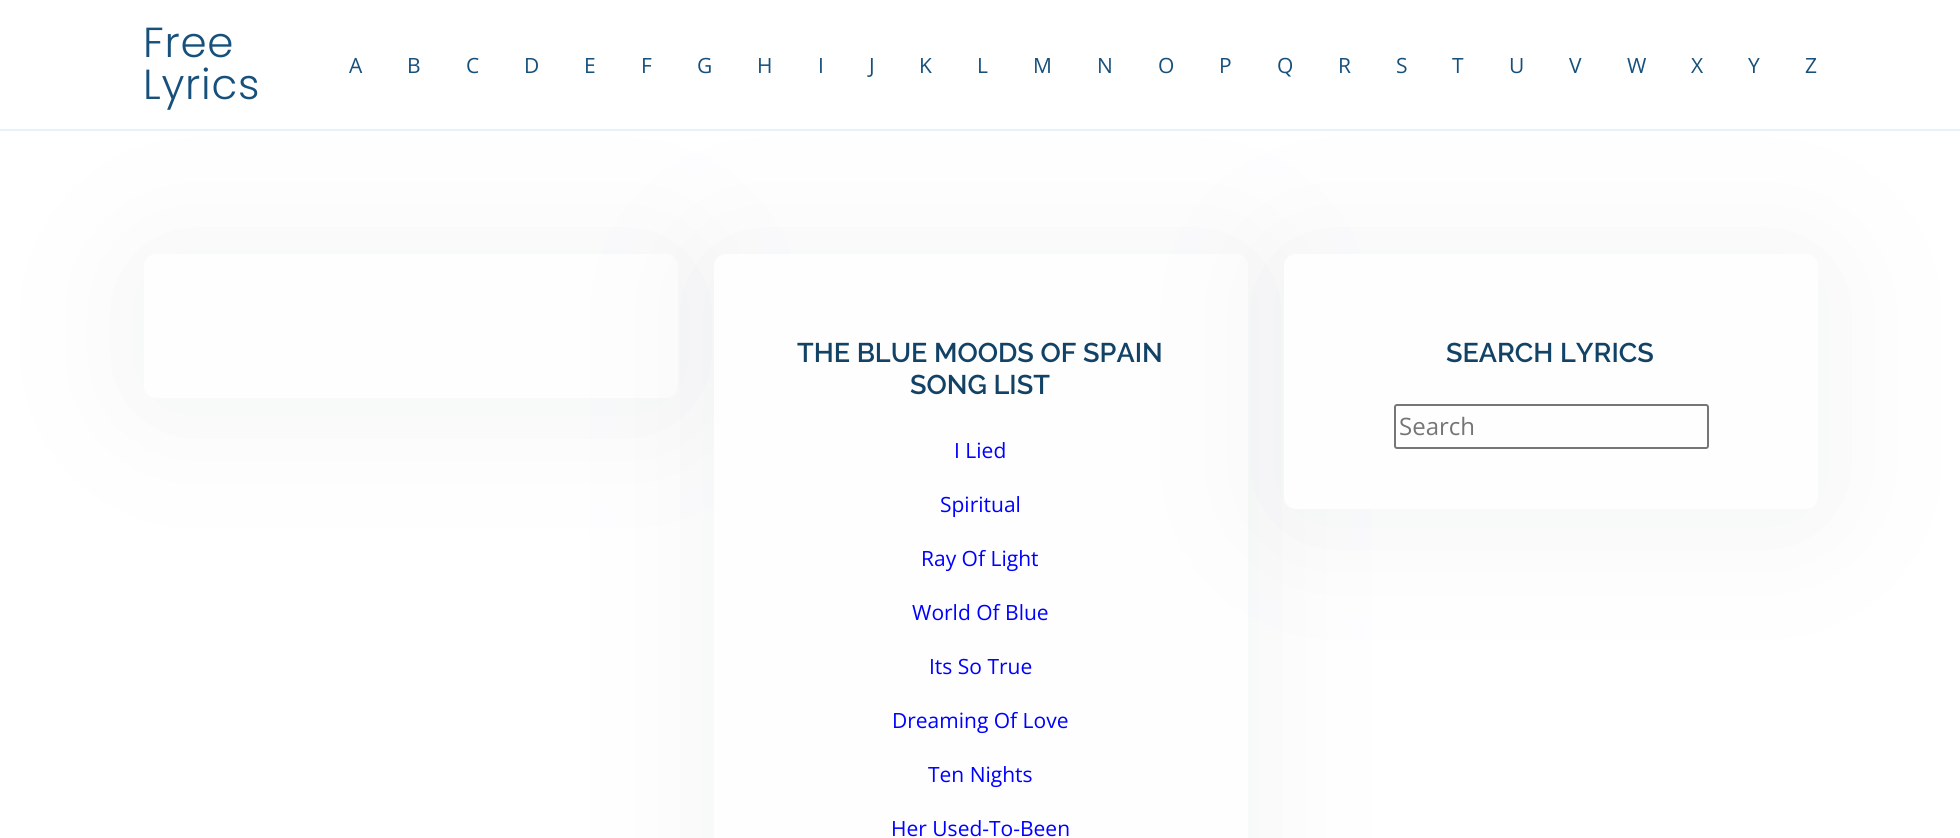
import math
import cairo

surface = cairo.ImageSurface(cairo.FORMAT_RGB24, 1960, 838)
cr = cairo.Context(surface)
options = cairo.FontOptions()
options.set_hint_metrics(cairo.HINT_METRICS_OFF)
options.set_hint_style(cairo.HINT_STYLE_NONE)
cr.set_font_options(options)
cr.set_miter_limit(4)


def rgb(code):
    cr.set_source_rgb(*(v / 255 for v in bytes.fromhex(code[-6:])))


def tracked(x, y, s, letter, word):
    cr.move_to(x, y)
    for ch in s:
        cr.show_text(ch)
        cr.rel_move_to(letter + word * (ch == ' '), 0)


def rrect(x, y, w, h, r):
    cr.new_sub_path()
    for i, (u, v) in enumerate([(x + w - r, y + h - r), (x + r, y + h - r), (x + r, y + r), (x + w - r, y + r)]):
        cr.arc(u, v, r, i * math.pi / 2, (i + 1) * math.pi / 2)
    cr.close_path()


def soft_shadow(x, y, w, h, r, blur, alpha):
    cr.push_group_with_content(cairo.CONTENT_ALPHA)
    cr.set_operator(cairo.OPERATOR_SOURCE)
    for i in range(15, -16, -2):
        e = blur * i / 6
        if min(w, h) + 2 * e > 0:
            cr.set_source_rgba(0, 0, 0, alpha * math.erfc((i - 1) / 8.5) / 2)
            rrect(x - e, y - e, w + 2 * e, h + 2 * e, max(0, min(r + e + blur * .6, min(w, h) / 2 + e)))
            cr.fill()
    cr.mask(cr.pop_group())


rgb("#ffffff")
cr.paint()
rgb("#6e7b83")
soft_shadow(144, 261, 534, 144, 12, 67.5, 0.1)
rgb("#fefefe")
rrect(144, 254, 534, 144, 12)
cr.fill()
rgb("#6e7b83")
soft_shadow(714, 261, 534, 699, 12, 67.5, 0.1)
rgb("#fefefe")
rrect(714, 254, 534, 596, 12)
cr.fill()
rgb("#6e7b83")
soft_shadow(1284, 261, 534, 255, 12, 67.5, 0.1)
rgb("#e6f2fb")
cr.rectangle(0, 129, 1960, 2)
cr.fill()
rgb("#fefefe")
rrect(1284, 254, 534, 255, 12)
cr.fill()
rrect(1395, 405, 313, 43, 2)
rgb("#767676")
cr.stroke()
cr.select_font_face("Poppins Light")
cr.set_font_size(42)
rgb("#16507b")
tracked(143, 57, "Free", 0.75, 0)
tracked(143, 99, "Lyrics", 0.75, 0)
cr.select_font_face("Open Sans")
cr.set_font_size(21)
for x, y, s in [
    (349, 73, "A"),
    (407, 73, "B"),
    (466, 73, "C"),
    (524, 73, "D"),
    (584, 73, "E"),
    (641, 73, "F"),
    (697, 73, "G"),
    (757, 73, "H"),
    (818, 73, "I"),
    (869, 73, "J"),
    (919, 73, "K"),
    (977, 73, "L"),
    (1033, 73, "M"),
    (1097, 73, "N"),
    (1158, 73, "O"),
    (1219, 73, "P"),
    (1277, 73, "Q"),
    (1338, 73, "R"),
    (1396, 73, "S"),
    (1452, 73, "T"),
    (1509, 73, "U"),
    (1569, 73, "V"),
    (1627, 73, "W"),
    (1691, 73, "X"),
    (1748, 73, "Y"),
    (1805, 73, "Z"),
]:
    cr.move_to(x, y)
    cr.show_text(s)
cr.select_font_face("Raleway SemiBold")
cr.set_font_size(27)
rgb("#124265")
cr.move_to(797, 362)
cr.show_text("THE BLUE MOODS OF SPAIN")
cr.move_to(910, 394)
cr.show_text("SONG LIST")
cr.select_font_face("Open Sans")
cr.set_font_size(21)
rgb("#0000ff")
for x, y, s in [
    (954, 458, "I Lied"),
    (940, 512, "Spiritual"),
    (921, 566, "Ray Of Light"),
    (912, 620, "World Of Blue"),
    (929, 674, "Its So True"),
    (892, 728, "Dreaming Of Love"),
    (928, 782, "Ten Nights"),
    (891, 836, "Her Used-To-Been"),
]:
    cr.move_to(x, y)
    cr.show_text(s)
cr.select_font_face("Raleway SemiBold")
cr.set_font_size(27)
rgb("#124265")
cr.move_to(1446, 362)
cr.show_text("SEARCH LYRICS")
cr.select_font_face("Open Sans")
cr.set_font_size(24)
rgb("#757575")
cr.move_to(1399, 435)
cr.show_text("Search")
surface.write_to_png("page.png")
